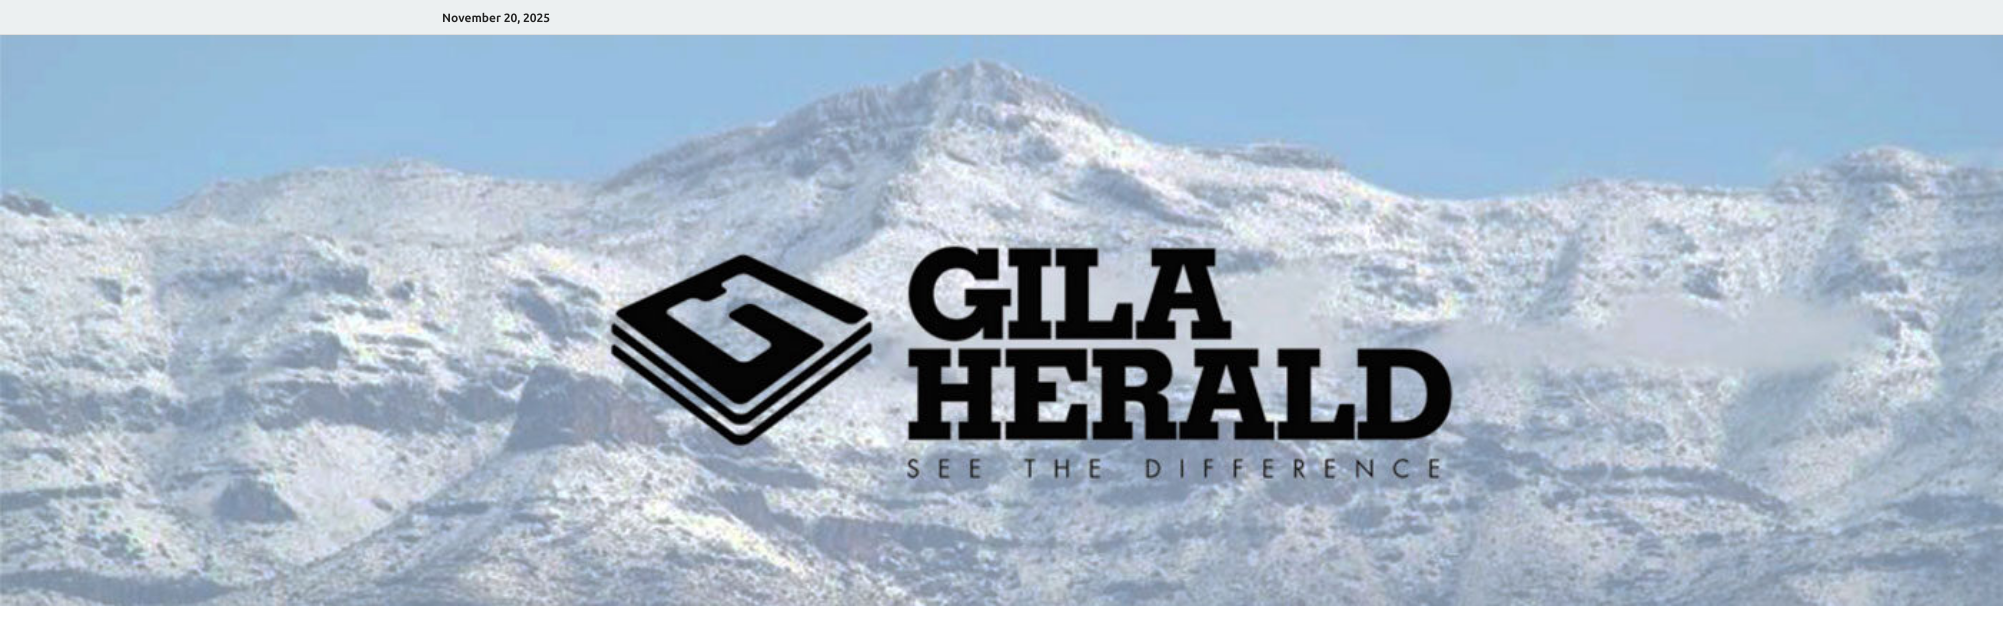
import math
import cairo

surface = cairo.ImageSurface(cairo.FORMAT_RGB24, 2003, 636)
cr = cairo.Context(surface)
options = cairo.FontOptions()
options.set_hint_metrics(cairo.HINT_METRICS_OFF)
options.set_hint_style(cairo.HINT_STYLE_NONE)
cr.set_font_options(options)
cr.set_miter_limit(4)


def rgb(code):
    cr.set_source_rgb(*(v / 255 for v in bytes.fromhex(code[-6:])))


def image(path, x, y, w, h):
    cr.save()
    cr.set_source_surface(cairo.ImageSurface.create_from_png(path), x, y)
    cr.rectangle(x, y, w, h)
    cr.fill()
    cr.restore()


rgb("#ffffff")
cr.paint()
rgb("#ecf0f1")
cr.rectangle(0, 0, 2003, 34)
cr.fill()
rgb("#dddddd")
cr.rectangle(0, 34, 2003, 1)
cr.fill()
image("img/1.png", 0, 35, 2003, 571)
cr.select_font_face("Ubuntu", cairo.FONT_SLANT_NORMAL, cairo.FONT_WEIGHT_BOLD)
cr.set_font_size(12)
rgb("#222222")
cr.move_to(442, 22)
cr.show_text("November 20, 2025")
surface.write_to_png("page.png")
